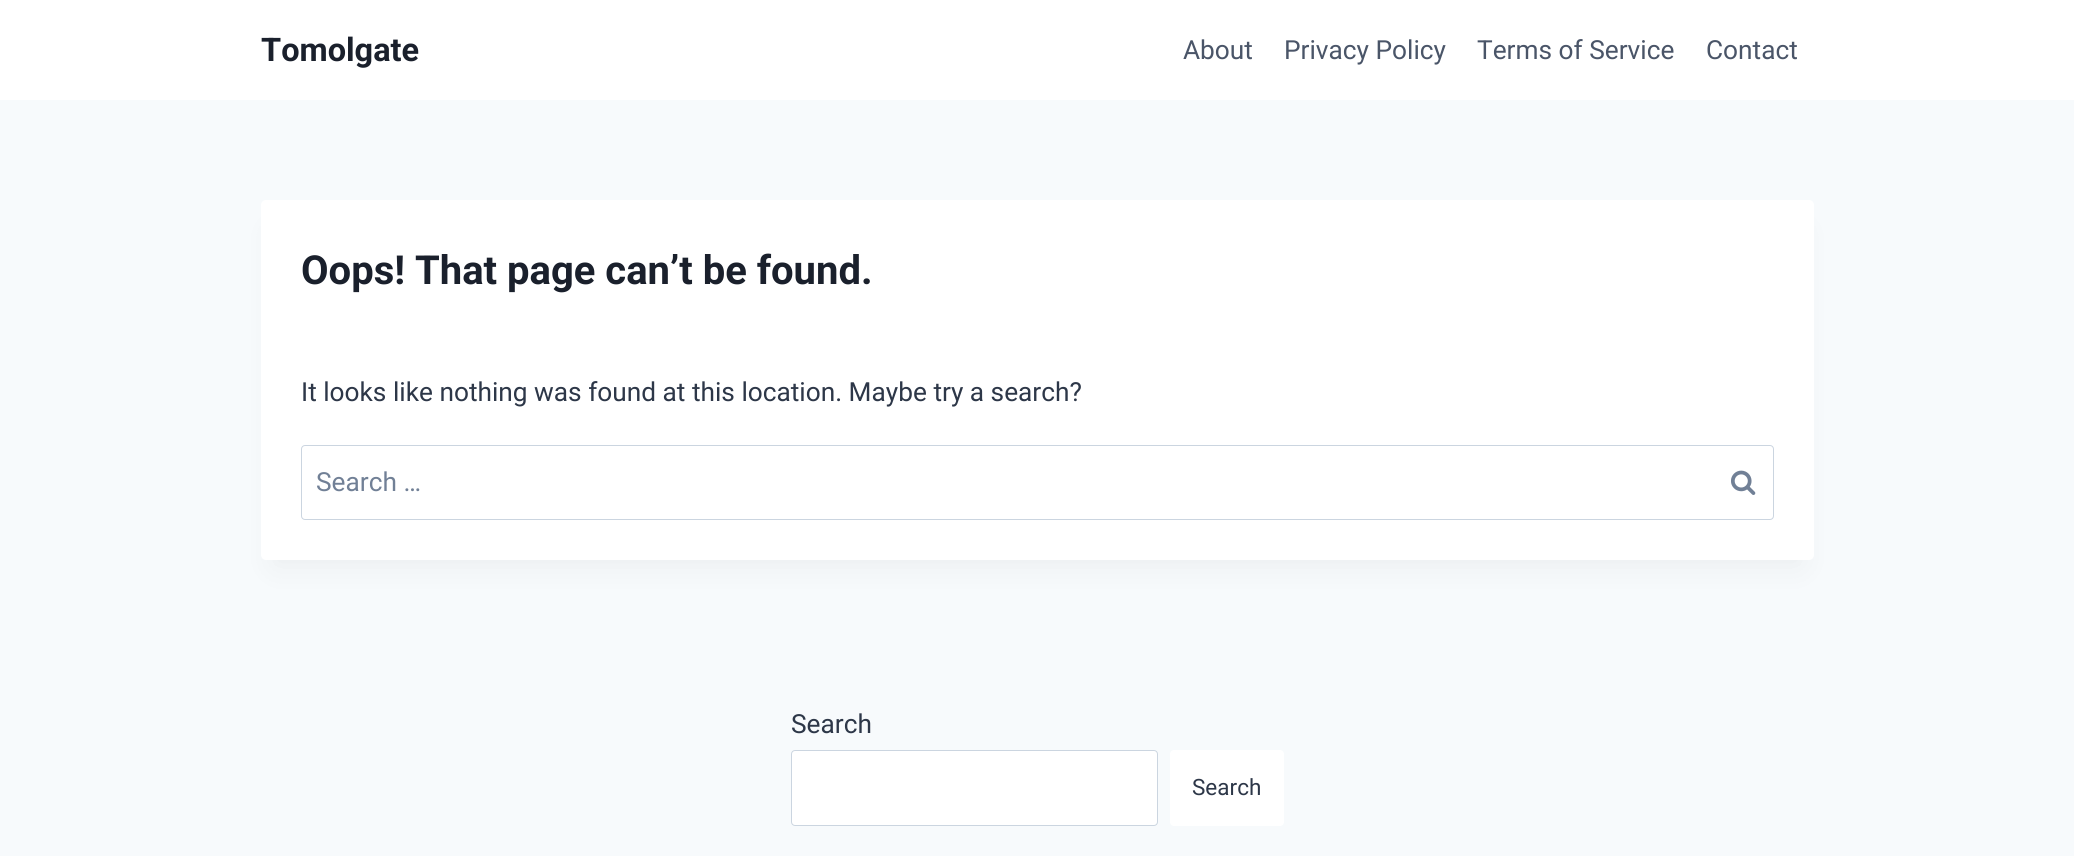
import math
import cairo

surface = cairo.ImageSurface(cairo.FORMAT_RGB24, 2074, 856)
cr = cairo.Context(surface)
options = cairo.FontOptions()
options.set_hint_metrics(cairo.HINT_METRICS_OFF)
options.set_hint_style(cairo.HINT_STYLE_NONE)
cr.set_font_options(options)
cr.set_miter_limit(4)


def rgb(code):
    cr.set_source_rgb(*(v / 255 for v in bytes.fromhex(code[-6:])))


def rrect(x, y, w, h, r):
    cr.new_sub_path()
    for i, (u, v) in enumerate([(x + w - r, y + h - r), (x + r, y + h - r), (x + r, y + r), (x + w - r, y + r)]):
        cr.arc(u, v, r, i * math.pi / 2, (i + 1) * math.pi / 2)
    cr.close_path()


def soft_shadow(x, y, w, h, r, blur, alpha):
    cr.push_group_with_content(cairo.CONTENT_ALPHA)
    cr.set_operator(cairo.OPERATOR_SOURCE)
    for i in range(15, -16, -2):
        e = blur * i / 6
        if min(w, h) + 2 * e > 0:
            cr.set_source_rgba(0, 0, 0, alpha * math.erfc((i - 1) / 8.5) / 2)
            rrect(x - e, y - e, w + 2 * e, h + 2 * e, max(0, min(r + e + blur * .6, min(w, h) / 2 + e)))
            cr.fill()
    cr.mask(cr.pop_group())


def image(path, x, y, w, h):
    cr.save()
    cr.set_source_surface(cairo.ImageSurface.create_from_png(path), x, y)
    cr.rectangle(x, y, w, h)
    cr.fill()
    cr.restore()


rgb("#f7fafc")
cr.paint()
rgb("#ffffff")
cr.rectangle(0, 0, 2074, 100)
cr.fill()
rgb("#000000")
soft_shadow(274, 231, 1527, 335, 0, 15.5, 0.05)
rgb("#ffffff")
rrect(261, 200, 1553, 360, 5)
cr.fill()
rrect(301.5, 445.5, 1472, 74, 3.5)
rgb("#cbd5e0")
cr.set_line_width(1)
cr.stroke()
image("img/1.png", 1731, 470, 25, 25)
rgb("#ffffff")
rrect(791.5, 750.5, 366, 75, 3.5)
cr.fill_preserve()
rgb("#cbd5e0")
cr.stroke()
rgb("#ffffff")
rrect(1170, 750, 114, 76, 4)
cr.fill()
cr.select_font_face("Roboto", cairo.FONT_SLANT_NORMAL, cairo.FONT_WEIGHT_BOLD)
cr.set_font_size(32.5)
rgb("#1a202c")
cr.move_to(261, 61)
cr.show_text("Tomolgate")
cr.select_font_face("Roboto")
cr.set_font_size(26.25)
rgb("#4a5568")
for x, y, s in [
    (1183, 59, "About"),
    (1284, 59, "Privacy Policy"),
    (1477, 59, "Terms of Service"),
    (1706, 59, "Contact"),
]:
    cr.move_to(x, y)
    cr.show_text(s)
cr.select_font_face("Roboto", cairo.FONT_SLANT_NORMAL, cairo.FONT_WEIGHT_BOLD)
cr.set_font_size(40)
rgb("#1a202c")
cr.move_to(301, 284)
cr.show_text("Oops! That page can’t be found.")
cr.select_font_face("Roboto")
cr.set_font_size(26.25)
rgb("#2d3748")
cr.move_to(301, 401)
cr.show_text("It looks like nothing was found at this location. Maybe try a search?")
rgb("#718096")
cr.move_to(316, 491)
cr.show_text("Search …")
rgb("#2d3748")
cr.move_to(791, 733)
cr.show_text("Search")
cr.set_font_size(22.5)
cr.move_to(1192, 795)
cr.show_text("Search")
surface.write_to_png("page.png")
